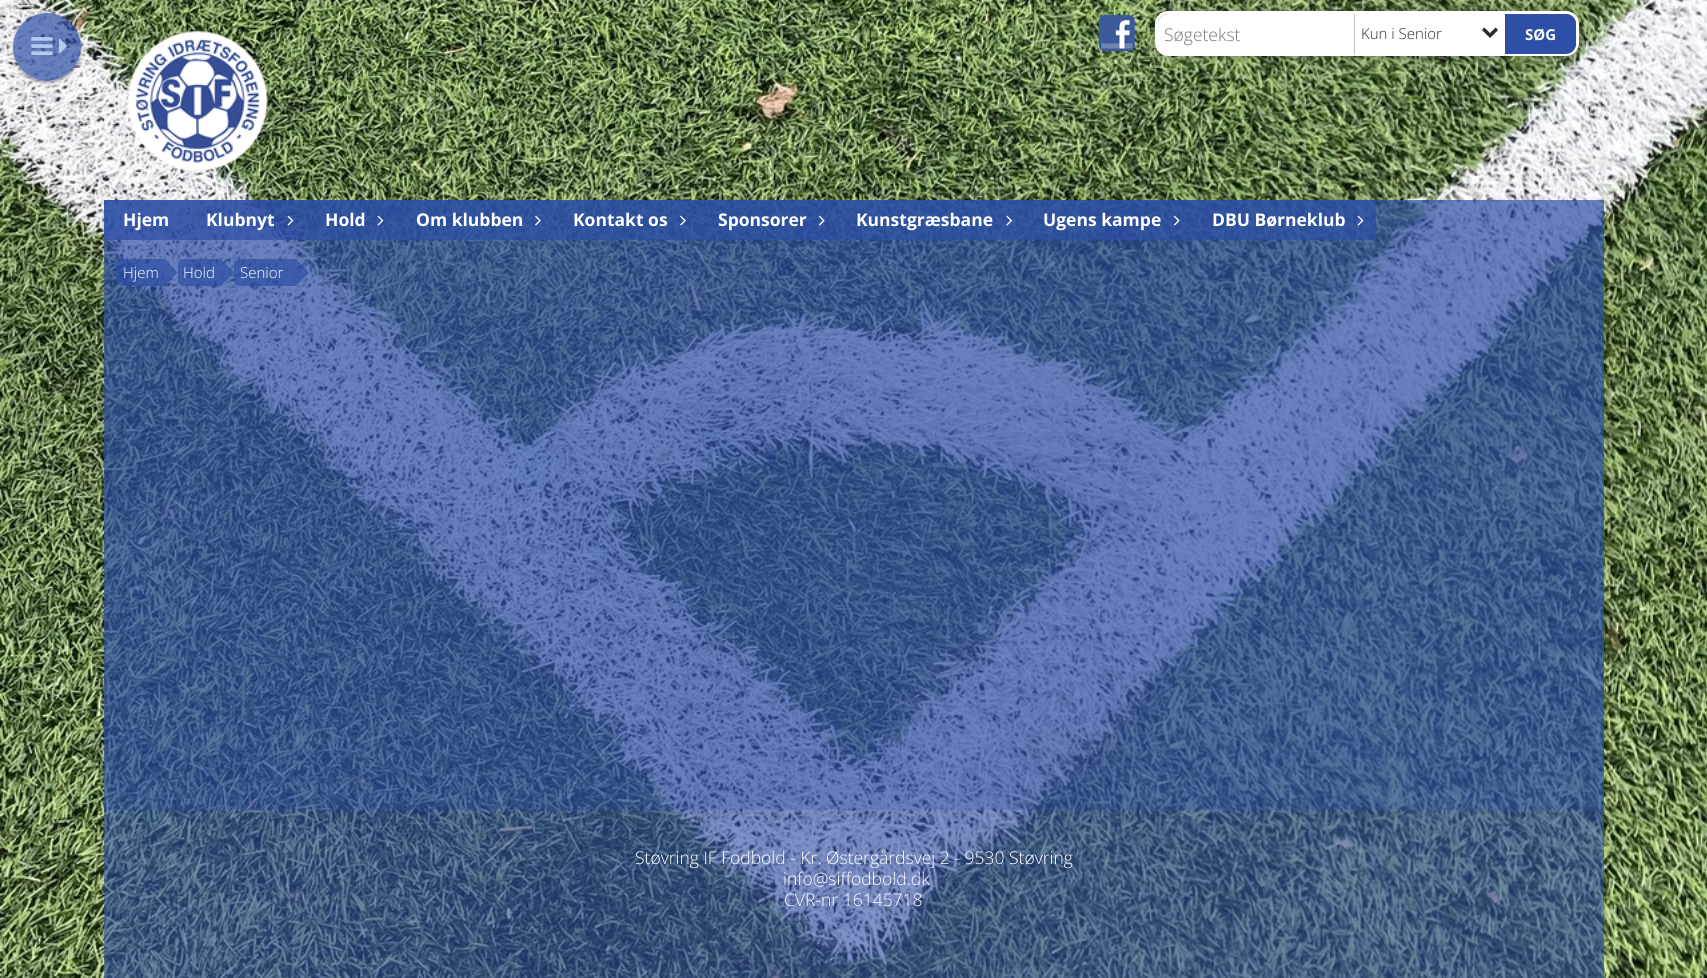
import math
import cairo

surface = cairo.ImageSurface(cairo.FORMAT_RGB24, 1707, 978)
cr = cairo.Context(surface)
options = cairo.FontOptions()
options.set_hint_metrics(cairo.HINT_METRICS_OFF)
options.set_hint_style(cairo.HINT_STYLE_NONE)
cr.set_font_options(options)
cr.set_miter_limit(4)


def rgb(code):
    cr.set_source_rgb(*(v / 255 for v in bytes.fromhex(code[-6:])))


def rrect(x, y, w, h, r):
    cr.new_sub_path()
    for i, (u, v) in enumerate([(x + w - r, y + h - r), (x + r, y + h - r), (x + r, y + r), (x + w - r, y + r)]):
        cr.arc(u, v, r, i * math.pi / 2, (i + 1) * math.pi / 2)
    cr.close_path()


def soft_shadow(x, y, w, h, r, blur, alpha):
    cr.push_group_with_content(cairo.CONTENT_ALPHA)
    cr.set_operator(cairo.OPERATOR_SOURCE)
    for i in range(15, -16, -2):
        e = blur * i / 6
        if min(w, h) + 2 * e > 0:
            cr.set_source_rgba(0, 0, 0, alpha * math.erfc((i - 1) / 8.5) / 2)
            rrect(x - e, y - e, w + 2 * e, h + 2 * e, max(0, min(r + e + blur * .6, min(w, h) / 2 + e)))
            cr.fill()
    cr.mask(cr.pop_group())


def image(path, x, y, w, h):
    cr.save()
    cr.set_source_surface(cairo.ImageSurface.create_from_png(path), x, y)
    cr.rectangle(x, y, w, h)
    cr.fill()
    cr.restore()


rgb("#ffffff")
cr.paint()
image("img/1.png", 0, 0, 1707, 978)
cr.save()
cr.set_fill_rule(cairo.FILL_RULE_EVEN_ODD)
cr.new_path()
cr.move_to(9, 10)
cr.line_to(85, 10)
cr.line_to(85, 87)
cr.line_to(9, 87)
cr.close_path()
cr.move_to(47, 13)
cr.curve_to(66, 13, 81, 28, 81, 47)
cr.curve_to(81, 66, 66, 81, 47, 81)
cr.curve_to(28, 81, 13, 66, 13, 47)
cr.curve_to(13, 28, 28, 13, 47, 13)
cr.close_path()
cr.clip()
rgb("#000000")
soft_shadow(13, 14, 68, 69, 34, 1, 0.24)
cr.restore()
cr.save()
cr.set_fill_rule(cairo.FILL_RULE_EVEN_ODD)
cr.new_path()
cr.move_to(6, 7)
cr.line_to(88, 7)
cr.line_to(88, 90)
cr.line_to(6, 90)
cr.close_path()
cr.move_to(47, 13)
cr.curve_to(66, 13, 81, 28, 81, 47)
cr.curve_to(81, 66, 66, 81, 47, 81)
cr.curve_to(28, 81, 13, 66, 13, 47)
cr.curve_to(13, 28, 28, 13, 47, 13)
cr.close_path()
cr.clip()
rgb("#000000")
soft_shadow(13, 14, 68, 69, 34, 2, 0.12)
cr.restore()
cr.set_source_rgba(0.176, 0.31, 0.651, 0.7)
cr.arc(47, 47, 34, 0, 2 * math.pi)
cr.fill()
image("img/2.png", 31, 37, 22, 18)
image("img/3.png", 58, 39, 9, 15)
image("img/4.png", 127, 31, 141, 140)
image("img/5.png", 1098, 15, 37, 37)
rgb("#303030")
soft_shadow(1155, 11, 424, 45, 13, 6, 0.5)
rrect(1156.5, 12.5, 421, 42, 11.5)
rgb("#ffffff")
cr.set_line_width(3)
cr.stroke()
cr.new_path()
cr.move_to(1168, 14)
cr.line_to(1359, 14)
cr.line_to(1359, 54)
cr.line_to(1168, 54)
cr.curve_to(1162.5, 54, 1158, 49.5, 1158, 44)
cr.line_to(1158, 24)
cr.curve_to(1158, 18.5, 1162.5, 14, 1168, 14)
cr.close_path()
cr.fill()
cr.rectangle(1359, 14, 146, 39)
cr.fill()
rgb("#c2c2c2")
cr.rectangle(1354, 14, 1, 40)
cr.fill()
image("img/6.png", 1482, 27, 16, 11)
rgb("#2d4fa6")
cr.new_path()
cr.move_to(1505, 14)
cr.line_to(1566, 14)
cr.curve_to(1571.5, 14, 1576, 18.5, 1576, 24)
cr.line_to(1576, 44)
cr.curve_to(1576, 49.5, 1571.5, 54, 1566, 54)
cr.line_to(1505, 54)
cr.close_path()
cr.fill()
cr.set_source_rgba(0.176, 0.31, 0.651, 0.7)
cr.rectangle(104, 200, 1500, 40)
cr.fill()
cr.rectangle(104, 200, 84, 40)
cr.fill()
cr.rectangle(188, 200, 118, 40)
cr.fill()
image("img/7.png", 287, 215, 7, 11)
cr.rectangle(306, 200, 90, 40)
cr.fill()
image("img/8.png", 377, 215, 7, 11)
cr.rectangle(396, 200, 158, 40)
cr.fill()
image("img/9.png", 535, 215, 6, 11)
cr.rectangle(554, 200, 145, 40)
cr.fill()
image("img/10.png", 680, 215, 6, 11)
cr.rectangle(699, 200, 139, 40)
cr.fill()
image("img/11.png", 818, 215, 7, 11)
cr.rectangle(838, 200, 187, 40)
cr.fill()
image("img/12.png", 1006, 215, 6, 11)
cr.rectangle(1025, 200, 168, 40)
cr.fill()
image("img/13.png", 1173, 215, 7, 11)
cr.rectangle(1193, 200, 183, 40)
cr.fill()
image("img/14.png", 1357, 215, 7, 11)
cr.rectangle(104, 240, 1500, 570)
cr.fill()
cr.new_path()
cr.move_to(122, 259)
cr.line_to(165, 259)
cr.line_to(165, 286)
cr.line_to(122, 286)
cr.curve_to(118.5, 286, 116, 283.5, 116, 280)
cr.line_to(116, 265)
cr.curve_to(116, 261.5, 118.5, 259, 122, 259)
cr.close_path()
cr.fill()
cr.new_path()
cr.move_to(165, 286)
cr.line_to(165, 259)
cr.line_to(177.5, 272.5)
cr.close_path()
cr.fill()
cr.new_path()
cr.move_to(184, 259)
cr.line_to(221, 259)
cr.line_to(221, 286)
cr.line_to(184, 286)
cr.curve_to(180.5, 286, 178, 283.5, 178, 280)
cr.line_to(178, 265)
cr.curve_to(178, 261.5, 180.5, 259, 184, 259)
cr.close_path()
cr.fill()
cr.new_path()
cr.move_to(221, 286)
cr.line_to(221, 259)
cr.line_to(234, 272.5)
cr.close_path()
cr.fill()
cr.new_path()
cr.move_to(240, 259)
cr.line_to(296, 259)
cr.line_to(296, 286)
cr.line_to(240, 286)
cr.curve_to(236.5, 286, 234, 283.5, 234, 280)
cr.line_to(234, 265)
cr.curve_to(234, 261.5, 236.5, 259, 240, 259)
cr.close_path()
cr.fill()
cr.new_path()
cr.move_to(296, 286)
cr.line_to(296, 259)
cr.line_to(309, 272.5)
cr.close_path()
cr.fill()
cr.set_source_rgba(0.176, 0.31, 0.651, 0.6)
cr.rectangle(104, 810, 1500, 168)
cr.fill()
cr.select_font_face("Open Sans Light")
cr.set_font_size(17.5)
rgb("#757575")
cr.move_to(1164, 41)
cr.show_text("Søgetekst")
cr.set_font_size(15)
rgb("#2c2c2c")
cr.move_to(1361, 39)
cr.show_text("Kun i Senior")
cr.select_font_face("Open Sans", cairo.FONT_SLANT_NORMAL, cairo.FONT_WEIGHT_BOLD)
rgb("#ffffff")
cr.move_to(1525, 40)
cr.show_text("SØG")
cr.set_font_size(17.5)
for x, y, s in [
    (123, 226, "Hjem"),
    (206, 226, "Klubnyt"),
    (325, 226, "Hold"),
    (416, 226, "Om klubben"),
    (573, 226, "Kontakt os"),
    (718, 226, "Sponsorer"),
    (856, 226, "Kunstgræsbane"),
    (1043, 226, "Ugens kampe"),
    (1212, 226, "DBU Børneklub"),
]:
    cr.move_to(x, y)
    cr.show_text(s)
cr.select_font_face("Open Sans Light")
cr.set_font_size(15)
for x, y, s in [
    (123, 278, "Hjem"),
    (183, 278, "Hold"),
    (240, 278, "Senior"),
]:
    cr.move_to(x, y)
    cr.show_text(s)
cr.set_font_size(17.5)
for x, y, s in [
    (635, 864, "Støvring IF Fodbold - Kr. Østergårdsvej 2 - 9530 Støvring"),
    (783, 885, "info@siffodbold.dk"),
    (784, 906, "CVR-nr 16145718"),
]:
    cr.move_to(x, y)
    cr.show_text(s)
surface.write_to_png("page.png")
